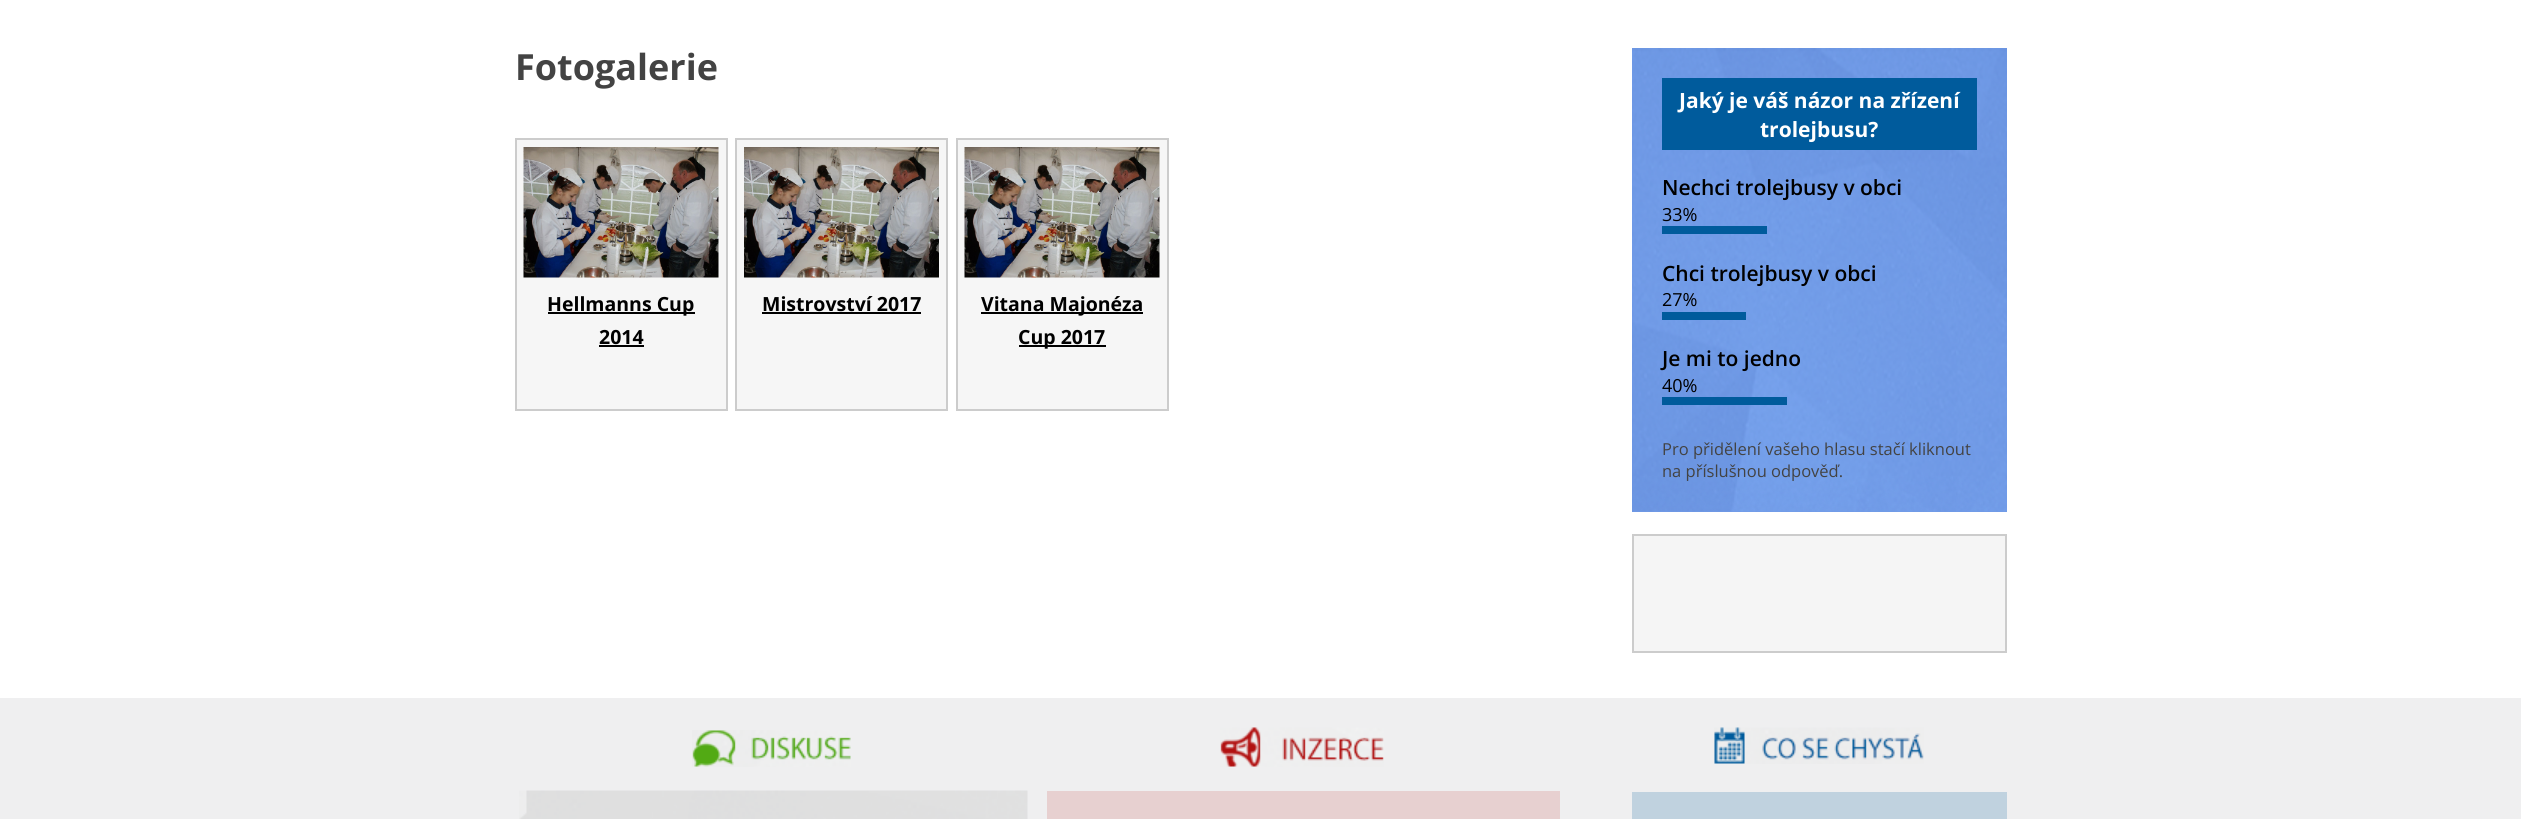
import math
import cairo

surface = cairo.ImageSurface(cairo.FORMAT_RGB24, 2521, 819)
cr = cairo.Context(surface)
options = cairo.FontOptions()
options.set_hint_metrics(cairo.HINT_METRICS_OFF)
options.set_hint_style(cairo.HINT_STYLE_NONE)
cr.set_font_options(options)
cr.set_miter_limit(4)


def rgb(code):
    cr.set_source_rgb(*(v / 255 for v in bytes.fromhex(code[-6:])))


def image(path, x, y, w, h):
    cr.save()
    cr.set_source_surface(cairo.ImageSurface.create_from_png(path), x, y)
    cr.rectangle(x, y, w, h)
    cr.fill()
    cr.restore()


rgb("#ffffff")
cr.paint()
rgb("#f6f6f6")
cr.rectangle(516, 139, 211, 271)
cr.fill_preserve()
rgb("#cccccc")
cr.stroke()
image("img/1.png", 523, 147, 196, 131)
rgb("#000000")
cr.rectangle(548, 312, 147, 2)
cr.fill()
cr.rectangle(599, 345, 45, 2)
cr.fill()
rgb("#f6f6f6")
cr.rectangle(736, 139, 211, 271)
cr.fill_preserve()
rgb("#cccccc")
cr.stroke()
image("img/2.png", 744, 147, 195, 131)
rgb("#000000")
cr.rectangle(762, 312, 159, 2)
cr.fill()
rgb("#f6f6f6")
cr.rectangle(957, 139, 211, 271)
cr.fill_preserve()
rgb("#cccccc")
cr.stroke()
image("img/3.png", 964, 147, 196, 131)
for x, y, w, h, color in [
    (981, 312, 162, 2, "#000000"),
    (1019, 345, 87, 2, "#000000"),
    (1632, 477, 375, 35, "#719ae7"),
]:
    rgb(color)
    cr.rectangle(x, y, w, h)
    cr.fill()
image("img/4.png", 1632, 48, 375, 464)
for x, y, w, h, color in [
    (1662, 78, 315, 72, "#005b9c"),
    (1662, 226, 105, 8, "#005b9c"),
    (1662, 312, 84, 8, "#005b9c"),
    (1662, 397, 125, 8, "#005b9c"),
]:
    rgb(color)
    cr.rectangle(x, y, w, h)
    cr.fill()
rgb("#f5f5f5")
cr.rectangle(1633, 535, 373, 117)
cr.fill_preserve()
rgb("#cccccc")
cr.stroke()
rgb("#efeff0")
cr.rectangle(0, 698, 2521, 121)
cr.fill()
image("img/5.png", 692, 730, 159, 37)
image("img/6.png", 519, 790, 509, 29)
image("img/7.png", 1220, 727, 164, 40)
rgb("#e7d0d0")
cr.rectangle(1047, 791, 513, 28)
cr.fill()
image("img/8.png", 1714, 727, 210, 37)
rgb("#c0d2df")
cr.rectangle(1632, 792, 375, 27)
cr.fill()
cr.select_font_face("Open Sans", cairo.FONT_SLANT_NORMAL, cairo.FONT_WEIGHT_BOLD)
cr.set_font_size(36)
rgb("#434343")
cr.move_to(515, 80)
cr.show_text("Fotogalerie")
cr.set_font_size(19.5)
rgb("#000000")
for x, y, s in [
    (547, 311, "Hellmanns Cup"),
    (599, 344, "2014"),
    (762, 311, "Mistrovství 2017"),
    (981, 311, "Vitana Majonéza"),
    (1018, 344, "Cup 2017"),
]:
    cr.move_to(x, y)
    cr.show_text(s)
cr.set_font_size(21)
rgb("#ffffff")
cr.move_to(1679, 108)
cr.show_text("Jaký je váš názor na zřízení")
cr.move_to(1760, 137)
cr.show_text("trolejbusu?")
cr.select_font_face("Open Sans SemiBold")
rgb("#000000")
cr.move_to(1662, 195)
cr.show_text("Nechci trolejbusy v obci")
cr.select_font_face("Open Sans")
cr.set_font_size(18)
cr.move_to(1662, 221)
cr.show_text("33%")
cr.select_font_face("Open Sans SemiBold")
cr.set_font_size(21)
cr.move_to(1662, 281)
cr.show_text("Chci trolejbusy v obci")
cr.select_font_face("Open Sans")
cr.set_font_size(18)
cr.move_to(1662, 306)
cr.show_text("27%")
cr.select_font_face("Open Sans SemiBold")
cr.set_font_size(21)
cr.move_to(1662, 366)
cr.show_text("Je mi to jedno")
cr.select_font_face("Open Sans")
cr.set_font_size(18)
cr.move_to(1662, 392)
cr.show_text("40%")
cr.set_font_size(16.5)
rgb("#434343")
cr.move_to(1662, 455)
cr.show_text("Pro přidělení vašeho hlasu stačí kliknout")
cr.move_to(1662, 477)
cr.show_text("na příslušnou odpověď.")
surface.write_to_png("page.png")
